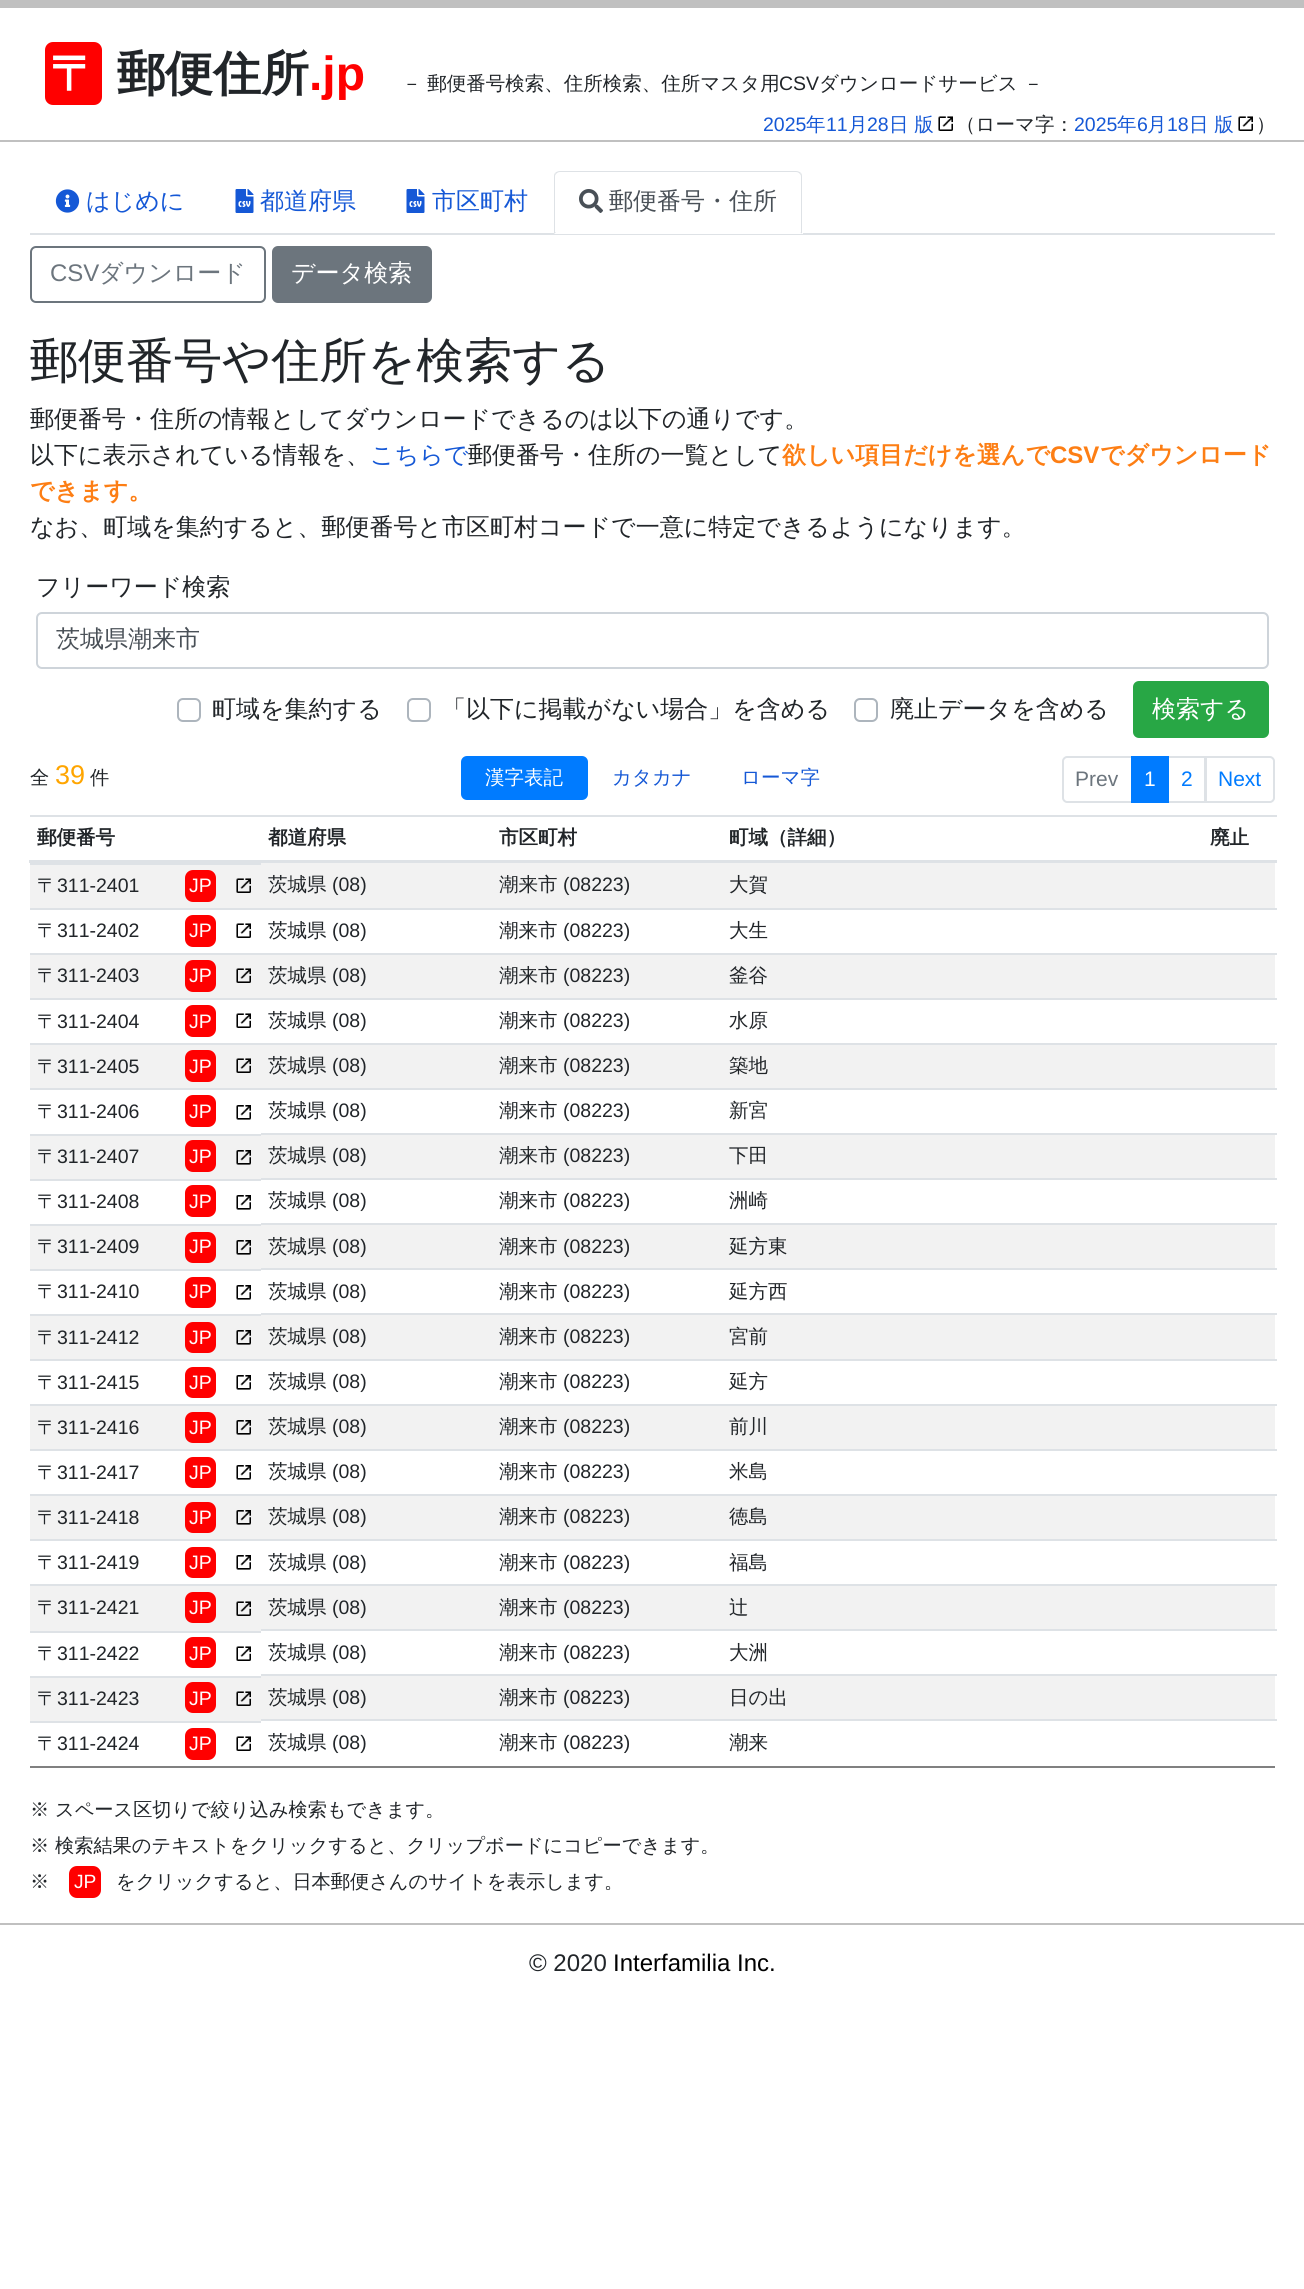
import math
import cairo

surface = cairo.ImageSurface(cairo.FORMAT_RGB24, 1304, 2289)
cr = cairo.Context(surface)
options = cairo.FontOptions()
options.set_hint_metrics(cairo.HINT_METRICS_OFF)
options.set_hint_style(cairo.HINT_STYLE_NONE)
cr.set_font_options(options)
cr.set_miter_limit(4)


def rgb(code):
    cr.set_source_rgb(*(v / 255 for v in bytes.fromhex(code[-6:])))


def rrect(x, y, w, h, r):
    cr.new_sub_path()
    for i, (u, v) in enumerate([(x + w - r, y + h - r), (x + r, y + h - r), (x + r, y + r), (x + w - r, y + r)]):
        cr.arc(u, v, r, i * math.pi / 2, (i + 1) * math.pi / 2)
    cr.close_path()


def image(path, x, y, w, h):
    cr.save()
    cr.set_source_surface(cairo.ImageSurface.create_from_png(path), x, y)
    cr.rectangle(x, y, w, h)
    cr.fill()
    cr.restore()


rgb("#ffffff")
cr.paint()
rgb("#c0c0c0")
cr.rectangle(0, 0, 1304, 8)
cr.fill()
cr.rectangle(0, 140, 1304, 2)
cr.fill()
rgb("#ff0000")
rrect(45, 42, 57, 63, 8)
cr.fill()
image("img/1.png", 938, 116, 15, 15)
image("img/1.png", 1238, 116, 15, 15)
rgb("#c0c0c0")
cr.rectangle(0, 1923, 1304, 2)
cr.fill()
rgb("#dee2e6")
cr.rectangle(30, 233, 1245, 2)
cr.fill()
image("img/2.png", 55, 189, 25, 24)
image("img/3.png", 235, 189, 19, 24)
image("img/3.png", 406, 189, 19, 24)
rgb("#ffffff")
cr.new_path()
cr.move_to(560, 171)
cr.line_to(797, 171)
cr.curve_to(800.5, 171, 803, 173.5, 803, 177)
cr.line_to(803, 234)
cr.line_to(554, 234)
cr.line_to(554, 177)
cr.curve_to(554, 173.5, 556.5, 171, 560, 171)
cr.close_path()
cr.fill()
rgb("#dee2e6")
cr.new_path()
cr.move_to(560, 171)
cr.curve_to(558, 171, 556, 172, 555, 173)
cr.line_to(556, 174)
cr.curve_to(557, 173, 558, 172, 560, 172)
cr.line_to(796, 172)
cr.curve_to(798, 172, 799, 173, 800, 174)
cr.line_to(801, 173)
cr.curve_to(800, 172, 798, 171, 796, 171)
cr.close_path()
cr.fill()
cr.new_path()
cr.move_to(801, 173)
cr.curve_to(802, 174, 802, 176, 802, 177)
cr.line_to(802, 234)
cr.line_to(800, 232)
cr.line_to(801, 232)
cr.line_to(801, 177)
cr.curve_to(801, 176, 801, 175, 800, 174)
cr.close_path()
cr.fill()
rgb("#ffffff")
cr.new_path()
cr.move_to(554, 234)
cr.line_to(802, 234)
cr.line_to(800, 232)
cr.line_to(556, 232)
cr.close_path()
cr.fill()
rgb("#dee2e6")
cr.new_path()
cr.move_to(555, 173)
cr.curve_to(554, 174, 554, 176, 554, 177)
cr.line_to(554, 234)
cr.line_to(556, 232)
cr.line_to(555, 232)
cr.line_to(555, 177)
cr.curve_to(555, 176, 555, 175, 556, 174)
cr.close_path()
cr.fill()
image("img/4.png", 579, 189, 24, 24)
rrect(31, 247, 234, 55, 5)
rgb("#6c757d")
cr.stroke()
rrect(273, 247, 158, 55, 5)
cr.fill_preserve()
cr.stroke()
rrect(37, 613, 1231, 55, 5)
rgb("#ced4da")
cr.stroke()
rrect(178, 699, 22, 22, 5)
rgb("#adb5bd")
cr.stroke()
rrect(408, 699, 22, 22, 5)
cr.stroke()
rrect(855, 699, 22, 22, 5)
cr.stroke()
rgb("#28a745")
rrect(1134, 682, 134, 55, 5)
cr.fill_preserve()
cr.stroke()
rgb("#007bff")
rrect(461, 756, 127, 44, 6)
cr.fill()
cr.new_path()
cr.move_to(1067, 757)
cr.line_to(1132, 757)
cr.line_to(1132, 802)
cr.line_to(1067, 802)
cr.curve_to(1065, 802, 1063, 800, 1063, 798)
cr.line_to(1063, 761)
cr.curve_to(1063, 759, 1065, 757, 1067, 757)
cr.close_path()
rgb("#dee2e6")
cr.stroke()
cr.rectangle(1168, 757, 37, 45)
cr.stroke()
rgb("#007bff")
cr.rectangle(1131, 756, 38, 47)
cr.fill()
rgb("#ffffff")
cr.new_path()
cr.move_to(1206, 757)
cr.line_to(1270, 757)
cr.curve_to(1272, 757, 1274, 759, 1274, 761)
cr.line_to(1274, 798)
cr.curve_to(1274, 800, 1272, 802, 1270, 802)
cr.line_to(1206, 802)
cr.close_path()
cr.fill_preserve()
rgb("#dee2e6")
cr.stroke()
for x, y, w, h, color in [
    (30, 1766, 1245, 2, "#808080"),
    (30, 815, 1247, 2, "#dee2e6"),
    (29, 860, 1248, 3, "#dee2e6"),
    (30, 863, 1245, 45, "#f2f2f2"),
    (30, 863, 231, 2, "#dee2e6"),
]:
    rgb(color)
    cr.rectangle(x, y, w, h)
    cr.fill()
image("img/5.png", 236, 878, 15, 15)
rgb("#ff0000")
rrect(185, 870, 31, 32, 8)
cr.fill()
rgb("#dee2e6")
cr.rectangle(261, 908, 1016, 2)
cr.fill()
cr.rectangle(30, 908, 231, 2)
cr.fill()
image("img/1.png", 236, 923, 15, 15)
rgb("#ff0000")
rrect(185, 915, 31, 32, 8)
cr.fill()
for x, y, w, h, color in [
    (30, 955, 1245, 43, "#f2f2f2"),
    (261, 953, 1016, 2, "#dee2e6"),
    (30, 953, 231, 2, "#dee2e6"),
]:
    rgb(color)
    cr.rectangle(x, y, w, h)
    cr.fill()
image("img/5.png", 236, 968, 15, 15)
rgb("#ff0000")
rrect(185, 960, 31, 32, 8)
cr.fill()
rgb("#dee2e6")
cr.rectangle(261, 998, 1016, 2)
cr.fill()
cr.rectangle(30, 998, 231, 2)
cr.fill()
image("img/1.png", 236, 1013, 15, 15)
rgb("#ff0000")
rrect(185, 1005, 31, 32, 8)
cr.fill()
for x, y, w, h, color in [
    (30, 1045, 1245, 43, "#f2f2f2"),
    (261, 1043, 1016, 2, "#dee2e6"),
    (30, 1043, 231, 2, "#dee2e6"),
]:
    rgb(color)
    cr.rectangle(x, y, w, h)
    cr.fill()
image("img/5.png", 236, 1058, 15, 15)
rgb("#ff0000")
rrect(185, 1050, 31, 32, 8)
cr.fill()
rgb("#dee2e6")
cr.rectangle(261, 1088, 1016, 2)
cr.fill()
cr.rectangle(30, 1088, 231, 2)
cr.fill()
image("img/6.png", 236, 1105, 15, 15)
rgb("#ff0000")
rrect(185, 1095, 31, 32, 8)
cr.fill()
for x, y, w, h, color in [
    (30, 1135, 1245, 44, "#f2f2f2"),
    (261, 1133, 1016, 2, "#dee2e6"),
    (30, 1134, 231, 2, "#dee2e6"),
]:
    rgb(color)
    cr.rectangle(x, y, w, h)
    cr.fill()
image("img/7.png", 236, 1150, 15, 15)
rgb("#ff0000")
rrect(185, 1140, 31, 32, 8)
cr.fill()
rgb("#dee2e6")
cr.rectangle(261, 1178, 1016, 2)
cr.fill()
cr.rectangle(30, 1179, 231, 2)
cr.fill()
image("img/6.png", 236, 1195, 15, 15)
rgb("#ff0000")
rrect(185, 1185, 31, 32, 8)
cr.fill()
for x, y, w, h, color in [
    (30, 1225, 1245, 44, "#f2f2f2"),
    (261, 1223, 1016, 2, "#dee2e6"),
    (30, 1224, 231, 2, "#dee2e6"),
]:
    rgb(color)
    cr.rectangle(x, y, w, h)
    cr.fill()
image("img/7.png", 236, 1240, 15, 15)
rgb("#ff0000")
rrect(185, 1232, 31, 31, 8)
cr.fill()
rgb("#dee2e6")
cr.rectangle(261, 1268, 1016, 2)
cr.fill()
cr.rectangle(30, 1269, 231, 2)
cr.fill()
image("img/6.png", 236, 1285, 15, 15)
rgb("#ff0000")
rrect(185, 1277, 31, 31, 8)
cr.fill()
for x, y, w, h, color in [
    (30, 1315, 1245, 44, "#f2f2f2"),
    (261, 1313, 1016, 2, "#dee2e6"),
    (30, 1314, 231, 2, "#dee2e6"),
]:
    rgb(color)
    cr.rectangle(x, y, w, h)
    cr.fill()
image("img/7.png", 236, 1330, 15, 15)
rgb("#ff0000")
rrect(185, 1322, 31, 31, 8)
cr.fill()
rgb("#dee2e6")
cr.rectangle(261, 1359, 1016, 2)
cr.fill()
cr.rectangle(30, 1359, 231, 2)
cr.fill()
image("img/6.png", 236, 1375, 15, 15)
rgb("#ff0000")
rrect(185, 1367, 31, 31, 8)
cr.fill()
for x, y, w, h, color in [
    (30, 1406, 1245, 43, "#f2f2f2"),
    (261, 1404, 1016, 2, "#dee2e6"),
    (30, 1404, 231, 2, "#dee2e6"),
]:
    rgb(color)
    cr.rectangle(x, y, w, h)
    cr.fill()
image("img/7.png", 236, 1420, 15, 15)
rgb("#ff0000")
rrect(185, 1412, 31, 31, 8)
cr.fill()
rgb("#dee2e6")
cr.rectangle(261, 1449, 1016, 2)
cr.fill()
cr.rectangle(30, 1449, 231, 2)
cr.fill()
image("img/6.png", 236, 1465, 15, 15)
rgb("#ff0000")
rrect(185, 1457, 31, 31, 8)
cr.fill()
for x, y, w, h, color in [
    (30, 1496, 1245, 43, "#f2f2f2"),
    (261, 1494, 1016, 2, "#dee2e6"),
    (30, 1494, 231, 2, "#dee2e6"),
]:
    rgb(color)
    cr.rectangle(x, y, w, h)
    cr.fill()
image("img/7.png", 236, 1510, 15, 15)
rgb("#ff0000")
rrect(185, 1502, 31, 31, 8)
cr.fill()
rgb("#dee2e6")
cr.rectangle(261, 1539, 1016, 2)
cr.fill()
cr.rectangle(30, 1539, 231, 2)
cr.fill()
image("img/6.png", 236, 1555, 15, 15)
rgb("#ff0000")
rrect(185, 1547, 31, 31, 8)
cr.fill()
for x, y, w, h, color in [
    (30, 1586, 1245, 45, "#f2f2f2"),
    (261, 1584, 1016, 2, "#dee2e6"),
    (30, 1584, 231, 2, "#dee2e6"),
]:
    rgb(color)
    cr.rectangle(x, y, w, h)
    cr.fill()
image("img/5.png", 236, 1601, 15, 15)
rgb("#ff0000")
rrect(185, 1592, 31, 31, 8)
cr.fill()
rgb("#dee2e6")
cr.rectangle(261, 1629, 1016, 2)
cr.fill()
cr.rectangle(30, 1631, 231, 2)
cr.fill()
image("img/1.png", 236, 1646, 15, 15)
rgb("#ff0000")
rrect(185, 1637, 31, 31, 8)
cr.fill()
for x, y, w, h, color in [
    (30, 1676, 1245, 45, "#f2f2f2"),
    (261, 1674, 1016, 2, "#dee2e6"),
    (30, 1676, 231, 2, "#dee2e6"),
]:
    rgb(color)
    cr.rectangle(x, y, w, h)
    cr.fill()
image("img/5.png", 236, 1691, 15, 15)
rgb("#ff0000")
rrect(185, 1682, 31, 31, 8)
cr.fill()
rgb("#dee2e6")
cr.rectangle(261, 1719, 1016, 2)
cr.fill()
cr.rectangle(30, 1721, 231, 2)
cr.fill()
image("img/1.png", 236, 1736, 15, 15)
rgb("#ff0000")
rrect(185, 1728, 31, 32, 8)
cr.fill()
rrect(69, 1866, 32, 32, 8)
cr.fill()
cr.select_font_face("WenQuanYi Zen Hei", cairo.FONT_SLANT_NORMAL, cairo.FONT_WEIGHT_BOLD)
cr.set_font_size(48)
rgb("#ffffff")
cr.move_to(50, 90)
cr.show_text("〒")
rgb("#212529")
cr.move_to(117, 90)
cr.show_text("郵便住所")
cr.select_font_face("Liberation Sans", cairo.FONT_SLANT_NORMAL, cairo.FONT_WEIGHT_BOLD)
rgb("#ff0000")
cr.move_to(309, 90)
cr.show_text(".jp")
cr.select_font_face("WenQuanYi Zen Hei Medium")
cr.set_font_size(19.5)
rgb("#212529")
cr.move_to(402, 90)
cr.show_text("－ 郵便番号検索、住所検索、住所マスタ用")
cr.select_font_face("Liberation Sans")
cr.move_to(779, 90)
cr.show_text("CSV")
cr.select_font_face("WenQuanYi Zen Hei Medium")
cr.move_to(819, 90)
cr.show_text("ダウンロードサービス －")
cr.select_font_face("Liberation Sans")
rgb("#1558d6")
cr.move_to(763, 131)
cr.show_text("2025")
cr.select_font_face("WenQuanYi Zen Hei Medium")
cr.move_to(806, 131)
cr.show_text("年")
cr.select_font_face("Liberation Sans")
cr.move_to(826, 131)
cr.show_text("11")
cr.select_font_face("WenQuanYi Zen Hei Medium")
cr.move_to(848, 131)
cr.show_text("月")
cr.select_font_face("Liberation Sans")
cr.move_to(867, 131)
cr.show_text("28")
cr.select_font_face("WenQuanYi Zen Hei Medium")
cr.move_to(889, 131)
cr.show_text("日 版")
rgb("#212529")
cr.move_to(956, 131)
cr.show_text("（ローマ字：")
cr.select_font_face("Liberation Sans")
rgb("#1558d6")
cr.move_to(1074, 131)
cr.show_text("2025")
cr.select_font_face("WenQuanYi Zen Hei Medium")
cr.move_to(1117, 131)
cr.show_text("年")
cr.select_font_face("Liberation Sans")
cr.move_to(1137, 131)
cr.show_text("6")
cr.select_font_face("WenQuanYi Zen Hei Medium")
cr.move_to(1147, 131)
cr.show_text("月")
cr.select_font_face("Liberation Sans")
cr.move_to(1167, 131)
cr.show_text("18")
cr.select_font_face("WenQuanYi Zen Hei Medium")
cr.move_to(1189, 131)
cr.show_text("日 版")
rgb("#212529")
cr.move_to(1256, 131)
cr.show_text("）")
cr.set_font_size(24)
rgb("#1558d6")
for x, y, s in [
    (86, 209, "はじめに"),
    (260, 209, "都道府県"),
    (432, 209, "市区町村"),
]:
    cr.move_to(x, y)
    cr.show_text(s)
rgb("#495057")
cr.move_to(609, 209)
cr.show_text("郵便番号・住所")
cr.select_font_face("Liberation Sans")
rgb("#6c757d")
cr.move_to(50, 281)
cr.show_text("CSV")
cr.select_font_face("WenQuanYi Zen Hei Medium")
cr.move_to(99, 281)
cr.show_text("ダウンロード")
rgb("#ffffff")
cr.move_to(291, 281)
cr.show_text("データ検索")
cr.set_font_size(48)
rgb("#212529")
cr.move_to(30, 377)
cr.show_text("郵便番号や住所を検索する")
cr.set_font_size(24)
cr.move_to(30, 427)
cr.show_text("郵便番号・住所の情報としてダウンロードできるのは以下の通りです。")
cr.move_to(30, 463)
cr.show_text("以下に表示されている情報を、")
rgb("#1558d6")
cr.move_to(370, 463)
cr.show_text("こちらで")
rgb("#212529")
cr.move_to(468, 463)
cr.show_text("郵便番号・住所の一覧として")
cr.select_font_face("WenQuanYi Zen Hei", cairo.FONT_SLANT_NORMAL, cairo.FONT_WEIGHT_BOLD)
rgb("#fd7e14")
cr.move_to(782, 463)
cr.show_text("欲しい項目だけを選んで")
cr.select_font_face("Liberation Sans", cairo.FONT_SLANT_NORMAL, cairo.FONT_WEIGHT_BOLD)
cr.move_to(1050, 463)
cr.show_text("CSV")
cr.select_font_face("WenQuanYi Zen Hei", cairo.FONT_SLANT_NORMAL, cairo.FONT_WEIGHT_BOLD)
cr.move_to(1100, 463)
cr.show_text("でダウンロード")
cr.move_to(30, 499)
cr.show_text("できます。")
cr.select_font_face("WenQuanYi Zen Hei Medium")
rgb("#212529")
cr.move_to(30, 535)
cr.show_text("なお、町域を集約すると、郵便番号と市区町村コードで一意に特定できるようになります。")
cr.move_to(36, 595)
cr.show_text("フリーワード検索")
rgb("#495057")
cr.move_to(56, 647)
cr.show_text("茨城県潮来市")
rgb("#212529")
for x, y, s in [
    (212, 717, "町域を集約する"),
    (442, 717, "「以下に掲載がない場合」を含める"),
    (890, 717, "廃止データを含める"),
]:
    cr.move_to(x, y)
    cr.show_text(s)
rgb("#ffffff")
cr.move_to(1152, 717)
cr.show_text("検索する")
cr.set_font_size(19.2)
rgb("#212529")
cr.move_to(30, 784)
cr.show_text("全")
cr.select_font_face("Liberation Sans")
cr.set_font_size(27)
rgb("#ffa500")
cr.move_to(55, 784)
cr.show_text("39")
cr.select_font_face("WenQuanYi Zen Hei Medium")
cr.set_font_size(19.2)
rgb("#212529")
cr.move_to(90, 784)
cr.show_text("件")
cr.set_font_size(19.5)
rgb("#ffffff")
cr.move_to(485, 784)
cr.show_text("漢字表記")
rgb("#1558d6")
cr.move_to(612, 784)
cr.show_text("カタカナ")
cr.move_to(741, 784)
cr.show_text("ローマ字")
cr.select_font_face("Liberation Sans")
cr.set_font_size(21)
rgb("#6c757d")
cr.move_to(1075, 786)
cr.show_text("Prev")
rgb("#ffffff")
cr.move_to(1144, 786)
cr.show_text("1")
rgb("#007bff")
cr.move_to(1181, 786)
cr.show_text("2")
cr.move_to(1218, 786)
cr.show_text("Next")
cr.select_font_face("WenQuanYi Zen Hei", cairo.FONT_SLANT_NORMAL, cairo.FONT_WEIGHT_BOLD)
cr.set_font_size(19.5)
rgb("#212529")
for x, y, s in [
    (37, 844, "郵便番号"),
    (268, 844, "都道府県"),
    (499, 844, "市区町村"),
    (729, 844, "町域（詳細）"),
    (1210, 844, "廃止"),
]:
    cr.move_to(x, y)
    cr.show_text(s)
cr.select_font_face("WenQuanYi Zen Hei Medium")
cr.move_to(37, 892)
cr.show_text("〒")
cr.select_font_face("Liberation Sans")
cr.move_to(57, 892)
cr.show_text("311-2401")
rgb("#ffffff")
cr.move_to(189, 892)
cr.show_text("JP")
cr.select_font_face("WenQuanYi Zen Hei Medium")
rgb("#212529")
cr.move_to(268, 891)
cr.show_text("茨城県")
cr.select_font_face("Liberation Sans")
cr.move_to(332, 891)
cr.show_text("(08)")
cr.select_font_face("WenQuanYi Zen Hei Medium")
cr.move_to(499, 891)
cr.show_text("潮来市")
cr.select_font_face("Liberation Sans")
cr.move_to(563, 891)
cr.show_text("(08223)")
cr.select_font_face("WenQuanYi Zen Hei Medium")
cr.move_to(729, 891)
cr.show_text("大賀")
cr.move_to(37, 937)
cr.show_text("〒")
cr.select_font_face("Liberation Sans")
cr.move_to(57, 937)
cr.show_text("311-2402")
rgb("#ffffff")
cr.move_to(189, 937)
cr.show_text("JP")
cr.select_font_face("WenQuanYi Zen Hei Medium")
rgb("#212529")
cr.move_to(268, 937)
cr.show_text("茨城県")
cr.select_font_face("Liberation Sans")
cr.move_to(332, 937)
cr.show_text("(08)")
cr.select_font_face("WenQuanYi Zen Hei Medium")
cr.move_to(499, 937)
cr.show_text("潮来市")
cr.select_font_face("Liberation Sans")
cr.move_to(563, 937)
cr.show_text("(08223)")
cr.select_font_face("WenQuanYi Zen Hei Medium")
cr.move_to(729, 937)
cr.show_text("大生")
cr.move_to(37, 982)
cr.show_text("〒")
cr.select_font_face("Liberation Sans")
cr.move_to(57, 982)
cr.show_text("311-2403")
rgb("#ffffff")
cr.move_to(189, 982)
cr.show_text("JP")
cr.select_font_face("WenQuanYi Zen Hei Medium")
rgb("#212529")
cr.move_to(268, 982)
cr.show_text("茨城県")
cr.select_font_face("Liberation Sans")
cr.move_to(332, 982)
cr.show_text("(08)")
cr.select_font_face("WenQuanYi Zen Hei Medium")
cr.move_to(499, 982)
cr.show_text("潮来市")
cr.select_font_face("Liberation Sans")
cr.move_to(563, 982)
cr.show_text("(08223)")
cr.select_font_face("WenQuanYi Zen Hei Medium")
cr.move_to(729, 982)
cr.show_text("釜谷")
cr.move_to(37, 1028)
cr.show_text("〒")
cr.select_font_face("Liberation Sans")
cr.move_to(57, 1028)
cr.show_text("311-2404")
rgb("#ffffff")
cr.move_to(189, 1028)
cr.show_text("JP")
cr.select_font_face("WenQuanYi Zen Hei Medium")
rgb("#212529")
cr.move_to(268, 1027)
cr.show_text("茨城県")
cr.select_font_face("Liberation Sans")
cr.move_to(332, 1027)
cr.show_text("(08)")
cr.select_font_face("WenQuanYi Zen Hei Medium")
cr.move_to(499, 1027)
cr.show_text("潮来市")
cr.select_font_face("Liberation Sans")
cr.move_to(563, 1027)
cr.show_text("(08223)")
cr.select_font_face("WenQuanYi Zen Hei Medium")
cr.move_to(729, 1027)
cr.show_text("水原")
cr.move_to(37, 1073)
cr.show_text("〒")
cr.select_font_face("Liberation Sans")
cr.move_to(57, 1073)
cr.show_text("311-2405")
rgb("#ffffff")
cr.move_to(189, 1073)
cr.show_text("JP")
cr.select_font_face("WenQuanYi Zen Hei Medium")
rgb("#212529")
cr.move_to(268, 1072)
cr.show_text("茨城県")
cr.select_font_face("Liberation Sans")
cr.move_to(332, 1072)
cr.show_text("(08)")
cr.select_font_face("WenQuanYi Zen Hei Medium")
cr.move_to(499, 1072)
cr.show_text("潮来市")
cr.select_font_face("Liberation Sans")
cr.move_to(563, 1072)
cr.show_text("(08223)")
cr.select_font_face("WenQuanYi Zen Hei Medium")
cr.move_to(729, 1072)
cr.show_text("築地")
cr.move_to(37, 1118)
cr.show_text("〒")
cr.select_font_face("Liberation Sans")
cr.move_to(57, 1118)
cr.show_text("311-2406")
rgb("#ffffff")
cr.move_to(189, 1118)
cr.show_text("JP")
cr.select_font_face("WenQuanYi Zen Hei Medium")
rgb("#212529")
cr.move_to(268, 1117)
cr.show_text("茨城県")
cr.select_font_face("Liberation Sans")
cr.move_to(332, 1117)
cr.show_text("(08)")
cr.select_font_face("WenQuanYi Zen Hei Medium")
cr.move_to(499, 1117)
cr.show_text("潮来市")
cr.select_font_face("Liberation Sans")
cr.move_to(563, 1117)
cr.show_text("(08223)")
cr.select_font_face("WenQuanYi Zen Hei Medium")
cr.move_to(729, 1117)
cr.show_text("新宮")
cr.move_to(37, 1163)
cr.show_text("〒")
cr.select_font_face("Liberation Sans")
cr.move_to(57, 1163)
cr.show_text("311-2407")
rgb("#ffffff")
cr.move_to(189, 1163)
cr.show_text("JP")
cr.select_font_face("WenQuanYi Zen Hei Medium")
rgb("#212529")
cr.move_to(268, 1162)
cr.show_text("茨城県")
cr.select_font_face("Liberation Sans")
cr.move_to(332, 1162)
cr.show_text("(08)")
cr.select_font_face("WenQuanYi Zen Hei Medium")
cr.move_to(499, 1162)
cr.show_text("潮来市")
cr.select_font_face("Liberation Sans")
cr.move_to(563, 1162)
cr.show_text("(08223)")
cr.select_font_face("WenQuanYi Zen Hei Medium")
cr.move_to(729, 1162)
cr.show_text("下田")
cr.move_to(37, 1208)
cr.show_text("〒")
cr.select_font_face("Liberation Sans")
cr.move_to(57, 1208)
cr.show_text("311-2408")
rgb("#ffffff")
cr.move_to(189, 1208)
cr.show_text("JP")
cr.select_font_face("WenQuanYi Zen Hei Medium")
rgb("#212529")
cr.move_to(268, 1207)
cr.show_text("茨城県")
cr.select_font_face("Liberation Sans")
cr.move_to(332, 1207)
cr.show_text("(08)")
cr.select_font_face("WenQuanYi Zen Hei Medium")
cr.move_to(499, 1207)
cr.show_text("潮来市")
cr.select_font_face("Liberation Sans")
cr.move_to(563, 1207)
cr.show_text("(08223)")
cr.select_font_face("WenQuanYi Zen Hei Medium")
cr.move_to(729, 1207)
cr.show_text("洲崎")
cr.move_to(37, 1253)
cr.show_text("〒")
cr.select_font_face("Liberation Sans")
cr.move_to(57, 1253)
cr.show_text("311-2409")
rgb("#ffffff")
cr.move_to(189, 1253)
cr.show_text("JP")
cr.select_font_face("WenQuanYi Zen Hei Medium")
rgb("#212529")
cr.move_to(268, 1253)
cr.show_text("茨城県")
cr.select_font_face("Liberation Sans")
cr.move_to(332, 1253)
cr.show_text("(08)")
cr.select_font_face("WenQuanYi Zen Hei Medium")
cr.move_to(499, 1253)
cr.show_text("潮来市")
cr.select_font_face("Liberation Sans")
cr.move_to(563, 1253)
cr.show_text("(08223)")
cr.select_font_face("WenQuanYi Zen Hei Medium")
cr.move_to(729, 1253)
cr.show_text("延方東")
cr.move_to(37, 1298)
cr.show_text("〒")
cr.select_font_face("Liberation Sans")
cr.move_to(57, 1298)
cr.show_text("311-2410")
rgb("#ffffff")
cr.move_to(189, 1298)
cr.show_text("JP")
cr.select_font_face("WenQuanYi Zen Hei Medium")
rgb("#212529")
cr.move_to(268, 1298)
cr.show_text("茨城県")
cr.select_font_face("Liberation Sans")
cr.move_to(332, 1298)
cr.show_text("(08)")
cr.select_font_face("WenQuanYi Zen Hei Medium")
cr.move_to(499, 1298)
cr.show_text("潮来市")
cr.select_font_face("Liberation Sans")
cr.move_to(563, 1298)
cr.show_text("(08223)")
cr.select_font_face("WenQuanYi Zen Hei Medium")
cr.move_to(729, 1298)
cr.show_text("延方西")
cr.move_to(37, 1344)
cr.show_text("〒")
cr.select_font_face("Liberation Sans")
cr.move_to(57, 1344)
cr.show_text("311-2412")
rgb("#ffffff")
cr.move_to(189, 1344)
cr.show_text("JP")
cr.select_font_face("WenQuanYi Zen Hei Medium")
rgb("#212529")
cr.move_to(268, 1343)
cr.show_text("茨城県")
cr.select_font_face("Liberation Sans")
cr.move_to(332, 1343)
cr.show_text("(08)")
cr.select_font_face("WenQuanYi Zen Hei Medium")
cr.move_to(499, 1343)
cr.show_text("潮来市")
cr.select_font_face("Liberation Sans")
cr.move_to(563, 1343)
cr.show_text("(08223)")
cr.select_font_face("WenQuanYi Zen Hei Medium")
cr.move_to(729, 1343)
cr.show_text("宮前")
cr.move_to(37, 1389)
cr.show_text("〒")
cr.select_font_face("Liberation Sans")
cr.move_to(57, 1389)
cr.show_text("311-2415")
rgb("#ffffff")
cr.move_to(189, 1389)
cr.show_text("JP")
cr.select_font_face("WenQuanYi Zen Hei Medium")
rgb("#212529")
cr.move_to(268, 1388)
cr.show_text("茨城県")
cr.select_font_face("Liberation Sans")
cr.move_to(332, 1388)
cr.show_text("(08)")
cr.select_font_face("WenQuanYi Zen Hei Medium")
cr.move_to(499, 1388)
cr.show_text("潮来市")
cr.select_font_face("Liberation Sans")
cr.move_to(563, 1388)
cr.show_text("(08223)")
cr.select_font_face("WenQuanYi Zen Hei Medium")
cr.move_to(729, 1388)
cr.show_text("延方")
cr.move_to(37, 1434)
cr.show_text("〒")
cr.select_font_face("Liberation Sans")
cr.move_to(57, 1434)
cr.show_text("311-2416")
rgb("#ffffff")
cr.move_to(189, 1434)
cr.show_text("JP")
cr.select_font_face("WenQuanYi Zen Hei Medium")
rgb("#212529")
cr.move_to(268, 1433)
cr.show_text("茨城県")
cr.select_font_face("Liberation Sans")
cr.move_to(332, 1433)
cr.show_text("(08)")
cr.select_font_face("WenQuanYi Zen Hei Medium")
cr.move_to(499, 1433)
cr.show_text("潮来市")
cr.select_font_face("Liberation Sans")
cr.move_to(563, 1433)
cr.show_text("(08223)")
cr.select_font_face("WenQuanYi Zen Hei Medium")
cr.move_to(729, 1433)
cr.show_text("前川")
cr.move_to(37, 1479)
cr.show_text("〒")
cr.select_font_face("Liberation Sans")
cr.move_to(57, 1479)
cr.show_text("311-2417")
rgb("#ffffff")
cr.move_to(189, 1479)
cr.show_text("JP")
cr.select_font_face("WenQuanYi Zen Hei Medium")
rgb("#212529")
cr.move_to(268, 1478)
cr.show_text("茨城県")
cr.select_font_face("Liberation Sans")
cr.move_to(332, 1478)
cr.show_text("(08)")
cr.select_font_face("WenQuanYi Zen Hei Medium")
cr.move_to(499, 1478)
cr.show_text("潮来市")
cr.select_font_face("Liberation Sans")
cr.move_to(563, 1478)
cr.show_text("(08223)")
cr.select_font_face("WenQuanYi Zen Hei Medium")
cr.move_to(729, 1478)
cr.show_text("米島")
cr.move_to(37, 1524)
cr.show_text("〒")
cr.select_font_face("Liberation Sans")
cr.move_to(57, 1524)
cr.show_text("311-2418")
rgb("#ffffff")
cr.move_to(189, 1524)
cr.show_text("JP")
cr.select_font_face("WenQuanYi Zen Hei Medium")
rgb("#212529")
cr.move_to(268, 1523)
cr.show_text("茨城県")
cr.select_font_face("Liberation Sans")
cr.move_to(332, 1523)
cr.show_text("(08)")
cr.select_font_face("WenQuanYi Zen Hei Medium")
cr.move_to(499, 1523)
cr.show_text("潮来市")
cr.select_font_face("Liberation Sans")
cr.move_to(563, 1523)
cr.show_text("(08223)")
cr.select_font_face("WenQuanYi Zen Hei Medium")
cr.move_to(729, 1523)
cr.show_text("徳島")
cr.move_to(37, 1569)
cr.show_text("〒")
cr.select_font_face("Liberation Sans")
cr.move_to(57, 1569)
cr.show_text("311-2419")
rgb("#ffffff")
cr.move_to(189, 1569)
cr.show_text("JP")
cr.select_font_face("WenQuanYi Zen Hei Medium")
rgb("#212529")
cr.move_to(268, 1569)
cr.show_text("茨城県")
cr.select_font_face("Liberation Sans")
cr.move_to(332, 1569)
cr.show_text("(08)")
cr.select_font_face("WenQuanYi Zen Hei Medium")
cr.move_to(499, 1569)
cr.show_text("潮来市")
cr.select_font_face("Liberation Sans")
cr.move_to(563, 1569)
cr.show_text("(08223)")
cr.select_font_face("WenQuanYi Zen Hei Medium")
cr.move_to(729, 1569)
cr.show_text("福島")
cr.move_to(37, 1614)
cr.show_text("〒")
cr.select_font_face("Liberation Sans")
cr.move_to(57, 1614)
cr.show_text("311-2421")
rgb("#ffffff")
cr.move_to(189, 1614)
cr.show_text("JP")
cr.select_font_face("WenQuanYi Zen Hei Medium")
rgb("#212529")
cr.move_to(268, 1614)
cr.show_text("茨城県")
cr.select_font_face("Liberation Sans")
cr.move_to(332, 1614)
cr.show_text("(08)")
cr.select_font_face("WenQuanYi Zen Hei Medium")
cr.move_to(499, 1614)
cr.show_text("潮来市")
cr.select_font_face("Liberation Sans")
cr.move_to(563, 1614)
cr.show_text("(08223)")
cr.select_font_face("WenQuanYi Zen Hei Medium")
cr.move_to(729, 1614)
cr.show_text("辻")
cr.move_to(37, 1660)
cr.show_text("〒")
cr.select_font_face("Liberation Sans")
cr.move_to(57, 1660)
cr.show_text("311-2422")
rgb("#ffffff")
cr.move_to(189, 1660)
cr.show_text("JP")
cr.select_font_face("WenQuanYi Zen Hei Medium")
rgb("#212529")
cr.move_to(268, 1659)
cr.show_text("茨城県")
cr.select_font_face("Liberation Sans")
cr.move_to(332, 1659)
cr.show_text("(08)")
cr.select_font_face("WenQuanYi Zen Hei Medium")
cr.move_to(499, 1659)
cr.show_text("潮来市")
cr.select_font_face("Liberation Sans")
cr.move_to(563, 1659)
cr.show_text("(08223)")
cr.select_font_face("WenQuanYi Zen Hei Medium")
cr.move_to(729, 1659)
cr.show_text("大洲")
cr.move_to(37, 1705)
cr.show_text("〒")
cr.select_font_face("Liberation Sans")
cr.move_to(57, 1705)
cr.show_text("311-2423")
rgb("#ffffff")
cr.move_to(189, 1705)
cr.show_text("JP")
cr.select_font_face("WenQuanYi Zen Hei Medium")
rgb("#212529")
cr.move_to(268, 1704)
cr.show_text("茨城県")
cr.select_font_face("Liberation Sans")
cr.move_to(332, 1704)
cr.show_text("(08)")
cr.select_font_face("WenQuanYi Zen Hei Medium")
cr.move_to(499, 1704)
cr.show_text("潮来市")
cr.select_font_face("Liberation Sans")
cr.move_to(563, 1704)
cr.show_text("(08223)")
cr.select_font_face("WenQuanYi Zen Hei Medium")
cr.move_to(729, 1704)
cr.show_text("日の出")
cr.move_to(37, 1750)
cr.show_text("〒")
cr.select_font_face("Liberation Sans")
cr.move_to(57, 1750)
cr.show_text("311-2424")
rgb("#ffffff")
cr.move_to(189, 1750)
cr.show_text("JP")
cr.select_font_face("WenQuanYi Zen Hei Medium")
rgb("#212529")
cr.move_to(268, 1749)
cr.show_text("茨城県")
cr.select_font_face("Liberation Sans")
cr.move_to(332, 1749)
cr.show_text("(08)")
cr.select_font_face("WenQuanYi Zen Hei Medium")
cr.move_to(499, 1749)
cr.show_text("潮来市")
cr.select_font_face("Liberation Sans")
cr.move_to(563, 1749)
cr.show_text("(08223)")
cr.select_font_face("WenQuanYi Zen Hei Medium")
cr.move_to(729, 1749)
cr.show_text("潮来")
cr.set_font_size(19.2)
for x, y, s in [
    (30, 1816, "※"),
    (55, 1816, "スペース区切りで絞り込み検索もできます。"),
    (30, 1852, "※"),
    (55, 1852, "検索結果のテキストをクリックすると、クリップボードにコピーできます。"),
    (30, 1888, "※"),
]:
    cr.move_to(x, y)
    cr.show_text(s)
cr.select_font_face("Liberation Sans")
rgb("#ffffff")
cr.move_to(74, 1888)
cr.show_text("JP")
cr.select_font_face("WenQuanYi Zen Hei Medium")
rgb("#212529")
cr.move_to(116, 1888)
cr.show_text("をクリックすると、日本郵便さんのサイトを表示します。")
cr.select_font_face("Liberation Sans")
cr.set_font_size(24)
cr.move_to(529, 1971)
cr.show_text("© 2020")
rgb("#000000")
cr.move_to(613, 1971)
cr.show_text("Interfamilia Inc.")
surface.write_to_png("page.png")
